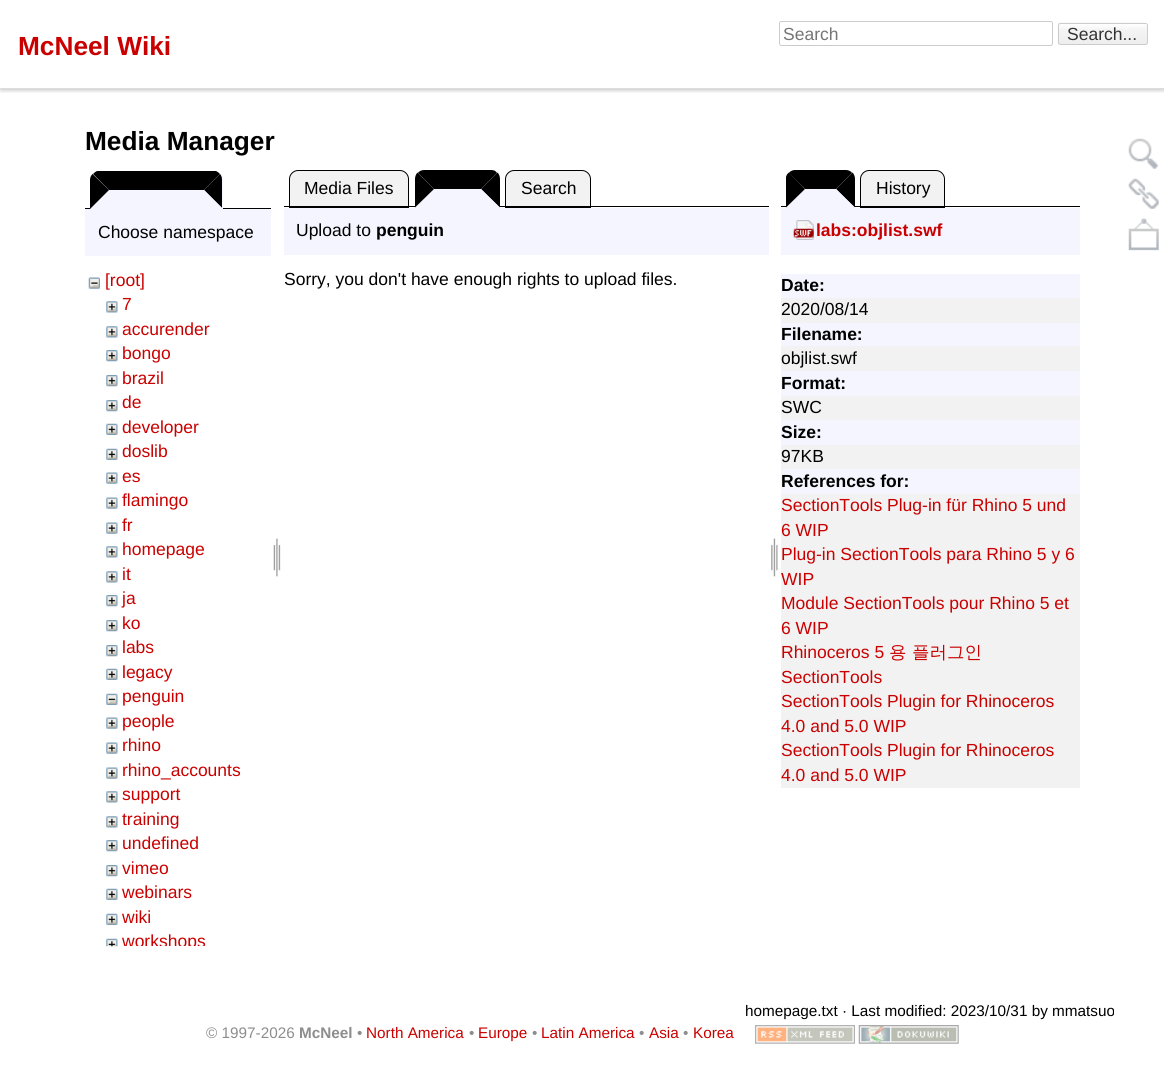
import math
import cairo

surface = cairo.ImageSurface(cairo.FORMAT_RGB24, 1164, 1068)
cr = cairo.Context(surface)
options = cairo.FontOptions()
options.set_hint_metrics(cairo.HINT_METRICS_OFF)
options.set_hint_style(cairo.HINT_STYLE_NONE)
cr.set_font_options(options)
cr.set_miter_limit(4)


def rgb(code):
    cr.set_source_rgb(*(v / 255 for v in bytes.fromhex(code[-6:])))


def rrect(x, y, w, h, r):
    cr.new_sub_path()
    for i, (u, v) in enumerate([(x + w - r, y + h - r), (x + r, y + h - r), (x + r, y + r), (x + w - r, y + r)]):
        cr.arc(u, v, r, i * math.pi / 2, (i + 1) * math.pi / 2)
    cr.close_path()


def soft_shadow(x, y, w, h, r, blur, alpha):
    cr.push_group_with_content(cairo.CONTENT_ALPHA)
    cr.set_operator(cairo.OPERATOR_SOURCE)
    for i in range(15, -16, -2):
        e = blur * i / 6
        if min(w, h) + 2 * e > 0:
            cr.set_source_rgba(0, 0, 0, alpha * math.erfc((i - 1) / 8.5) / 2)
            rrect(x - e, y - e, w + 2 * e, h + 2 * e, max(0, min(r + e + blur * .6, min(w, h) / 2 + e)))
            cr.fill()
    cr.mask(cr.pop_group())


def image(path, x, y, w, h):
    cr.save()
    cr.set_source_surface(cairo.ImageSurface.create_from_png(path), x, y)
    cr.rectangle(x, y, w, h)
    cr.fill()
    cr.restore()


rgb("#ffffff")
cr.paint()
cr.save()
cr.rectangle(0, 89, 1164, 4)
cr.clip()
rgb("#000000")
soft_shadow(1, 4, 1163, 86, 0, 2.5, 0.25)
cr.restore()
rgb("#dddddd")
cr.rectangle(0, 88, 1164, 1)
cr.fill()
rrect(779.5, 21.5, 273, 24, 2)
rgb("#cccccc")
cr.set_line_width(1)
cr.stroke()
image("img/1.png", 1057, 22, 90, 23)
rrect(1058.5, 23.5, 89, 21, 2)
cr.stroke()
rgb("#000000")
cr.rectangle(85, 208, 186, 1)
cr.fill()
rgb("#f5f5ff")
cr.new_path()
cr.move_to(99, 171)
cr.line_to(214, 171)
cr.curve_to(219, 171, 223, 175, 223, 180)
cr.line_to(223, 209)
cr.line_to(90, 209)
cr.line_to(90, 180)
cr.curve_to(90, 175, 94, 171, 99, 171)
cr.close_path()
cr.fill()
rgb("#000000")
cr.new_path()
cr.move_to(216, 171)
cr.line_to(97, 171)
cr.curve_to(95, 172, 94, 173, 93, 174)
cr.line_to(109, 190)
cr.line_to(204, 190)
cr.line_to(220, 174)
cr.curve_to(219, 173, 218, 172, 216, 171)
cr.close_path()
cr.fill()
cr.new_path()
cr.move_to(220, 174)
cr.line_to(204, 190)
cr.line_to(222, 208)
cr.line_to(222, 180)
cr.curve_to(222, 177.5, 221.5, 175.5, 220, 174)
cr.close_path()
cr.fill()
rgb("#f5f5ff")
cr.new_path()
cr.move_to(222, 208)
cr.line_to(204, 190)
cr.line_to(109, 190)
cr.line_to(90, 209)
cr.line_to(222, 209)
cr.close_path()
cr.fill()
rgb("#000000")
cr.new_path()
cr.move_to(90, 209)
cr.line_to(109, 190)
cr.line_to(92.5, 174)
cr.curve_to(91, 175.5, 90, 177.5, 90, 180)
cr.close_path()
cr.fill()
rgb("#f5f5ff")
cr.rectangle(85, 209, 186, 47)
cr.fill()
image("img/2.png", 88, 277, 12, 12)
image("img/3.png", 106, 301, 12, 12)
image("img/3.png", 106, 326, 12, 12)
image("img/4.png", 106, 350, 12, 12)
image("img/4.png", 106, 375, 12, 12)
image("img/4.png", 106, 400, 12, 12)
image("img/5.png", 106, 423, 12, 12)
image("img/5.png", 106, 448, 12, 12)
image("img/6.png", 106, 472, 12, 12)
image("img/6.png", 106, 497, 12, 12)
image("img/6.png", 106, 522, 12, 12)
image("img/3.png", 106, 546, 12, 12)
image("img/3.png", 106, 571, 12, 12)
image("img/4.png", 106, 595, 12, 12)
image("img/4.png", 106, 620, 12, 12)
image("img/4.png", 106, 645, 12, 12)
image("img/5.png", 106, 668, 12, 12)
image("img/7.png", 106, 693, 12, 12)
image("img/6.png", 106, 717, 12, 12)
image("img/6.png", 106, 742, 12, 12)
image("img/6.png", 106, 767, 12, 12)
image("img/3.png", 106, 791, 12, 12)
image("img/3.png", 106, 816, 12, 12)
image("img/4.png", 106, 840, 12, 12)
image("img/4.png", 106, 865, 12, 12)
image("img/5.png", 106, 888, 12, 12)
image("img/5.png", 106, 913, 12, 12)
image("img/8.png", 106, 938, 12, 9)
image("img/9.png", 273, 538, 8, 39)
rgb("#f2f2f2")
cr.new_path()
cr.move_to(298, 170.5)
cr.line_to(400, 170.5)
cr.curve_to(404.5, 170.5, 408.5, 174.5, 408.5, 179)
cr.line_to(408.5, 207.5)
cr.line_to(289.5, 207.5)
cr.line_to(289.5, 179)
cr.curve_to(289.5, 174.5, 293.5, 170.5, 298, 170.5)
cr.close_path()
cr.fill_preserve()
rgb("#000000")
cr.stroke()
rgb("#f2f2f2")
cr.new_path()
cr.move_to(514, 170.5)
cr.line_to(582, 170.5)
cr.curve_to(586.5, 170.5, 590.5, 174.5, 590.5, 179)
cr.line_to(590.5, 207.5)
cr.line_to(505.5, 207.5)
cr.line_to(505.5, 179)
cr.curve_to(505.5, 174.5, 509.5, 170.5, 514, 170.5)
cr.close_path()
cr.fill_preserve()
rgb("#000000")
cr.stroke()
cr.rectangle(284, 206, 485, 1)
cr.fill()
rgb("#f5f5ff")
cr.new_path()
cr.move_to(424, 170)
cr.line_to(491, 170)
cr.curve_to(496, 170, 500, 174, 500, 179)
cr.line_to(500, 208)
cr.line_to(415, 208)
cr.line_to(415, 179)
cr.curve_to(415, 174, 419, 170, 424, 170)
cr.close_path()
cr.fill()
rgb("#000000")
cr.new_path()
cr.move_to(424, 170)
cr.line_to(491, 170)
cr.curve_to(494, 170, 496, 171, 497, 173)
cr.line_to(481, 189)
cr.line_to(434, 189)
cr.line_to(418, 173)
cr.curve_to(419, 171, 422, 170, 424, 170)
cr.close_path()
cr.fill()
cr.new_path()
cr.move_to(497.5, 172.5)
cr.line_to(481, 189)
cr.line_to(500, 207.5)
cr.line_to(500, 179)
cr.curve_to(500, 176.5, 499, 174, 497.5, 172.5)
cr.close_path()
cr.fill()
rgb("#f5f5ff")
cr.new_path()
cr.move_to(500, 208)
cr.line_to(481, 189)
cr.line_to(434, 189)
cr.line_to(415, 208)
cr.close_path()
cr.fill()
rgb("#000000")
cr.new_path()
cr.move_to(415, 207.5)
cr.line_to(434, 189)
cr.line_to(417.5, 172.5)
cr.curve_to(416, 174, 415, 176.5, 415, 179)
cr.close_path()
cr.fill()
rgb("#f5f5ff")
cr.rectangle(284, 208, 485, 47)
cr.fill()
image("img/10.png", 771, 537, 7, 40)
rgb("#f2f2f2")
cr.new_path()
cr.move_to(869, 170.5)
cr.line_to(936, 170.5)
cr.curve_to(940.5, 170.5, 944.5, 174.5, 944.5, 179)
cr.line_to(944.5, 207.5)
cr.line_to(860.5, 207.5)
cr.line_to(860.5, 179)
cr.curve_to(860.5, 174.5, 864.5, 170.5, 869, 170.5)
cr.close_path()
cr.fill_preserve()
rgb("#000000")
cr.stroke()
cr.rectangle(781, 206, 299, 1)
cr.fill()
rgb("#f5f5ff")
cr.new_path()
cr.move_to(795, 170)
cr.line_to(846, 170)
cr.curve_to(851, 170, 855, 174, 855, 179)
cr.line_to(855, 208)
cr.line_to(786, 208)
cr.line_to(786, 179)
cr.curve_to(786, 174, 790, 170, 795, 170)
cr.close_path()
cr.fill()
rgb("#000000")
cr.new_path()
cr.move_to(795, 170)
cr.line_to(846, 170)
cr.curve_to(848, 170, 851, 171, 852, 173)
cr.line_to(836, 189)
cr.line_to(805, 189)
cr.line_to(789, 173)
cr.curve_to(790, 171, 793, 170, 795, 170)
cr.close_path()
cr.fill()
cr.new_path()
cr.move_to(852.5, 172.5)
cr.line_to(836, 189)
cr.line_to(855, 207.5)
cr.line_to(855, 179)
cr.curve_to(855, 176.5, 854, 174, 852.5, 172.5)
cr.close_path()
cr.fill()
rgb("#f5f5ff")
cr.new_path()
cr.move_to(855, 208)
cr.line_to(836, 189)
cr.line_to(805, 189)
cr.line_to(786, 208)
cr.close_path()
cr.fill()
rgb("#000000")
cr.new_path()
cr.move_to(786, 207.5)
cr.line_to(805, 189)
cr.line_to(789, 172.5)
cr.curve_to(787.5, 173.5, 786.5, 175, 786, 177)
cr.close_path()
cr.fill()
rgb("#f5f5ff")
cr.rectangle(781, 208, 299, 47)
cr.fill()
image("img/11.png", 793, 220, 21, 20)
for x, y, w, h, color in [
    (781, 274, 299, 24, "#f5f5ff"),
    (781, 298, 299, 25, "#f2f2f2"),
    (781, 323, 299, 23, "#f5f5ff"),
    (781, 346, 299, 25, "#f2f2f2"),
    (781, 371, 299, 25, "#f5f5ff"),
    (781, 396, 299, 24, "#f2f2f2"),
    (781, 420, 299, 25, "#f5f5ff"),
    (781, 445, 299, 24, "#f2f2f2"),
    (781, 469, 299, 25, "#f5f5ff"),
    (781, 494, 299, 294, "#f2f2f2"),
]:
    rgb(color)
    cr.rectangle(x, y, w, h)
    cr.fill()
image("img/12.png", 1128, 138, 31, 31)
image("img/13.png", 1128, 178, 31, 31)
image("img/14.png", 1128, 218, 31, 33)
image("img/15.png", 755, 1025, 100, 19)
image("img/16.png", 858, 1025, 101, 19)
cr.select_font_face("Liberation Sans")
cr.set_font_size(17.5)
rgb("#757575")
cr.move_to(783, 40)
cr.show_text("Search")
rgb("#333333")
cr.move_to(1067, 40)
cr.show_text("Search...")
cr.select_font_face("Liberation Sans", cairo.FONT_SLANT_NORMAL, cairo.FONT_WEIGHT_BOLD)
cr.set_font_size(26.25)
rgb("#ca0000")
cr.move_to(18, 55)
cr.show_text("McNeel Wiki")
rgb("#000000")
cr.move_to(85, 150)
cr.show_text("Media Manager")
cr.select_font_face("Liberation Sans")
cr.set_font_size(17.5)
cr.move_to(98, 238)
cr.show_text("Choose namespace")
rgb("#ca0000")
for x, y, s in [
    (105, 286, "[root]"),
    (122, 310, "7"),
    (122, 335, "accurender"),
    (122, 359, "bongo"),
    (122, 384, "brazil"),
    (122, 408, "de"),
    (122, 433, "developer"),
    (122, 457, "doslib"),
    (122, 482, "es"),
    (122, 506, "flamingo"),
    (122, 531, "fr"),
    (122, 555, "homepage"),
    (122, 580, "it"),
    (122, 604, "ja"),
    (122, 629, "ko"),
    (122, 653, "labs"),
    (122, 678, "legacy"),
    (122, 702, "penguin"),
    (122, 727, "people"),
    (122, 751, "rhino"),
    (122, 776, "rhino_accounts"),
    (122, 800, "support"),
    (122, 825, "training"),
    (122, 849, "undefined"),
    (122, 874, "vimeo"),
    (122, 898, "webinars"),
    (122, 923, "wiki"),
]:
    cr.move_to(x, y)
    cr.show_text(s)
cr.save()
cr.rectangle(85, 269, 186, 677)
cr.clip()
cr.move_to(122, 947)
cr.show_text("workshops")
cr.restore()
rgb("#000000")
for x, y, s in [
    (304, 194, "Media Files"),
    (521, 194, "Search"),
    (296, 236, "Upload to"),
]:
    cr.move_to(x, y)
    cr.show_text(s)
cr.select_font_face("Liberation Sans", cairo.FONT_SLANT_NORMAL, cairo.FONT_WEIGHT_BOLD)
cr.move_to(376, 236)
cr.show_text("penguin")
cr.select_font_face("Liberation Sans")
cr.move_to(284, 285)
cr.show_text("Sorry, you don't have enough rights to upload files.")
cr.move_to(876, 194)
cr.show_text("History")
cr.select_font_face("Liberation Sans", cairo.FONT_SLANT_NORMAL, cairo.FONT_WEIGHT_BOLD)
rgb("#ca0000")
cr.move_to(816, 236)
cr.show_text("labs:objlist.swf")
rgb("#000000")
cr.move_to(781, 291)
cr.show_text("Date:")
cr.select_font_face("Liberation Sans")
cr.move_to(781, 315)
cr.show_text("2020/08/14")
cr.select_font_face("Liberation Sans", cairo.FONT_SLANT_NORMAL, cairo.FONT_WEIGHT_BOLD)
cr.move_to(781, 340)
cr.show_text("Filename:")
cr.select_font_face("Liberation Sans")
cr.move_to(781, 364)
cr.show_text("objlist.swf")
cr.select_font_face("Liberation Sans", cairo.FONT_SLANT_NORMAL, cairo.FONT_WEIGHT_BOLD)
cr.move_to(781, 389)
cr.show_text("Format:")
cr.select_font_face("Liberation Sans")
cr.move_to(781, 413)
cr.show_text("SWC")
cr.select_font_face("Liberation Sans", cairo.FONT_SLANT_NORMAL, cairo.FONT_WEIGHT_BOLD)
cr.move_to(781, 438)
cr.show_text("Size:")
cr.select_font_face("Liberation Sans")
cr.move_to(781, 462)
cr.show_text("97KB")
cr.select_font_face("Liberation Sans", cairo.FONT_SLANT_NORMAL, cairo.FONT_WEIGHT_BOLD)
cr.move_to(781, 487)
cr.show_text("References for:")
cr.select_font_face("Liberation Sans")
rgb("#ca0000")
for x, y, s in [
    (781, 511, "SectionTools Plug-in für Rhino 5 und"),
    (781, 536, "6 WIP"),
    (781, 560, "Plug-in SectionTools para Rhino 5 y 6"),
    (781, 585, "WIP"),
    (781, 609, "Module SectionTools pour Rhino 5 et"),
    (781, 634, "6 WIP"),
    (781, 658, "Rhinoceros 5"),
]:
    cr.move_to(x, y)
    cr.show_text(s)
cr.select_font_face("WenQuanYi Zen Hei Medium")
cr.move_to(889, 658)
cr.show_text("용")
cr.move_to(912, 658)
cr.show_text("플러그인")
cr.select_font_face("Liberation Sans")
for x, y, s in [
    (781, 683, "SectionTools"),
    (781, 707, "SectionTools Plugin for Rhinoceros"),
    (781, 732, "4.0 and 5.0 WIP"),
    (781, 756, "SectionTools Plugin for Rhinoceros"),
    (781, 781, "4.0 and 5.0 WIP"),
]:
    cr.move_to(x, y)
    cr.show_text(s)
cr.set_font_size(15.3)
rgb("#000000")
cr.move_to(745, 1016)
cr.show_text("homepage.txt · Last modified: 2023/10/31 by mmatsuo")
rgb("#8d8d8d")
cr.move_to(206, 1038)
cr.show_text("© 1997-2026")
cr.select_font_face("Liberation Sans", cairo.FONT_SLANT_NORMAL, cairo.FONT_WEIGHT_BOLD)
cr.move_to(299, 1038)
cr.show_text("McNeel")
cr.select_font_face("Liberation Sans")
cr.move_to(357, 1038)
cr.show_text("•")
rgb("#ca0000")
cr.move_to(366, 1038)
cr.show_text("North America")
rgb("#8d8d8d")
cr.move_to(469, 1038)
cr.show_text("•")
rgb("#ca0000")
cr.move_to(478, 1038)
cr.show_text("Europe")
rgb("#8d8d8d")
cr.move_to(532, 1038)
cr.show_text("•")
rgb("#ca0000")
cr.move_to(541, 1038)
cr.show_text("Latin America")
rgb("#8d8d8d")
cr.move_to(639, 1038)
cr.show_text("•")
rgb("#ca0000")
cr.move_to(649, 1038)
cr.show_text("Asia")
rgb("#8d8d8d")
cr.move_to(683, 1038)
cr.show_text("•")
rgb("#ca0000")
cr.move_to(693, 1038)
cr.show_text("Korea")
surface.write_to_png("page.png")
